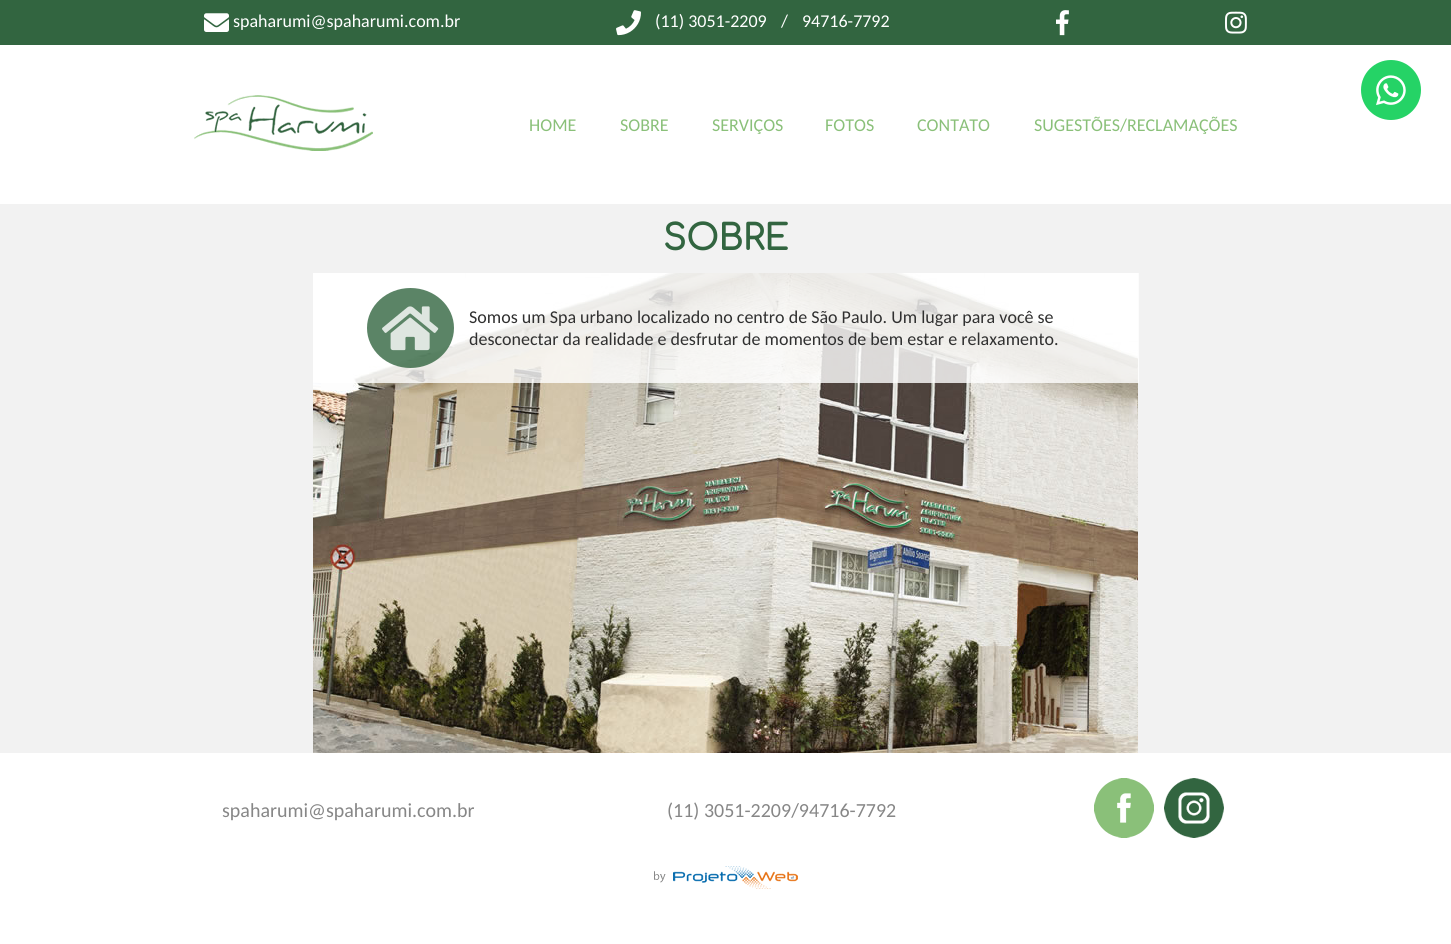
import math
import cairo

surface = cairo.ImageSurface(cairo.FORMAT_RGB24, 1451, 944)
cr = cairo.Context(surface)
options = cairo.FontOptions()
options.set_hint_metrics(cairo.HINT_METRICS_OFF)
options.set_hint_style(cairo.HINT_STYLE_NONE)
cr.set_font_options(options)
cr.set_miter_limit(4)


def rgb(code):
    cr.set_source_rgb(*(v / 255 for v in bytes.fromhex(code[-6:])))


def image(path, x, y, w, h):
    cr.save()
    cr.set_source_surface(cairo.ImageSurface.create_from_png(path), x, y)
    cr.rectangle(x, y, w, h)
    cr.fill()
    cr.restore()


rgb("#ffffff")
cr.paint()
rgb("#326540")
cr.rectangle(0, 0, 1451, 45)
cr.fill()
image("img/1.png", 204, 13, 25, 19)
image("img/2.png", 616, 10, 25, 26)
image("img/3.png", 1056, 10, 13, 26)
image("img/4.png", 1225, 11, 22, 23)
rgb("#25d366")
cr.arc(1391, 90, 30, 0, 2 * math.pi)
cr.fill()
image("img/5.png", 1376, 75, 30, 31)
image("img/6.png", 194, 95, 179, 56)
rgb("#f2f2f2")
cr.rectangle(0, 204, 1451, 549)
cr.fill()
image("img/7.png", 313, 273, 825, 480)
cr.set_source_rgba(1, 1, 1, 0.8)
cr.rectangle(313, 273, 826, 110)
cr.fill()
cr.set_source_rgba(0.196, 0.396, 0.251, 0.8)
cr.new_path()
cr.move_to(410.5, 288)
cr.curve_to(434.5, 288, 454, 306, 454, 328)
cr.curve_to(454, 350, 434.5, 368, 410.5, 368)
cr.curve_to(386.5, 368, 367, 350, 367, 328)
cr.curve_to(367, 306, 386.5, 288, 410.5, 288)
cr.close_path()
cr.fill()
image("img/8.png", 382, 306, 57, 45)
image("img/9.png", 1094, 778, 60, 60)
image("img/10.png", 1164, 778, 60, 60)
image("img/11.png", 654, 866, 144, 23)
cr.select_font_face("Carlito")
cr.set_font_size(18)
rgb("#ffffff")
for x, y, s in [
    (233, 27, "spaharumi@spaharumi.com.br"),
    (655, 27, "(11) 3051-2209"),
    (781, 27, "/"),
    (802, 27, "94716-7792"),
]:
    cr.move_to(x, y)
    cr.show_text(s)
rgb("#8ac079")
for x, y, s in [
    (529, 131, "HOME"),
    (620, 131, "SOBRE"),
    (712, 131, "SERVIÇOS"),
    (825, 131, "FOTOS"),
    (917, 131, "CONTATO"),
    (1034, 131, "SUGESTÕES/RECLAMAÇÕES"),
]:
    cr.move_to(x, y)
    cr.show_text(s)
cr.select_font_face("Comfortaa", cairo.FONT_SLANT_NORMAL, cairo.FONT_WEIGHT_BOLD)
cr.set_font_size(35)
rgb("#326540")
cr.move_to(663, 250)
cr.show_text("SOBRE")
cr.select_font_face("Carlito")
cr.set_font_size(18)
rgb("#303030")
cr.move_to(469, 323)
cr.show_text("Somos um Spa urbano localizado no centro de São Paulo. Um lugar para você se")
cr.move_to(469, 345)
cr.show_text("desconectar da realidade e desfrutar de momentos de bem estar e relaxamento.")
cr.set_font_size(20)
rgb("#878787")
cr.move_to(222, 817)
cr.show_text("spaharumi@spaharumi.com.br")
cr.move_to(667, 817)
cr.show_text("(11) 3051-2209/94716-7792")
surface.write_to_png("page.png")
